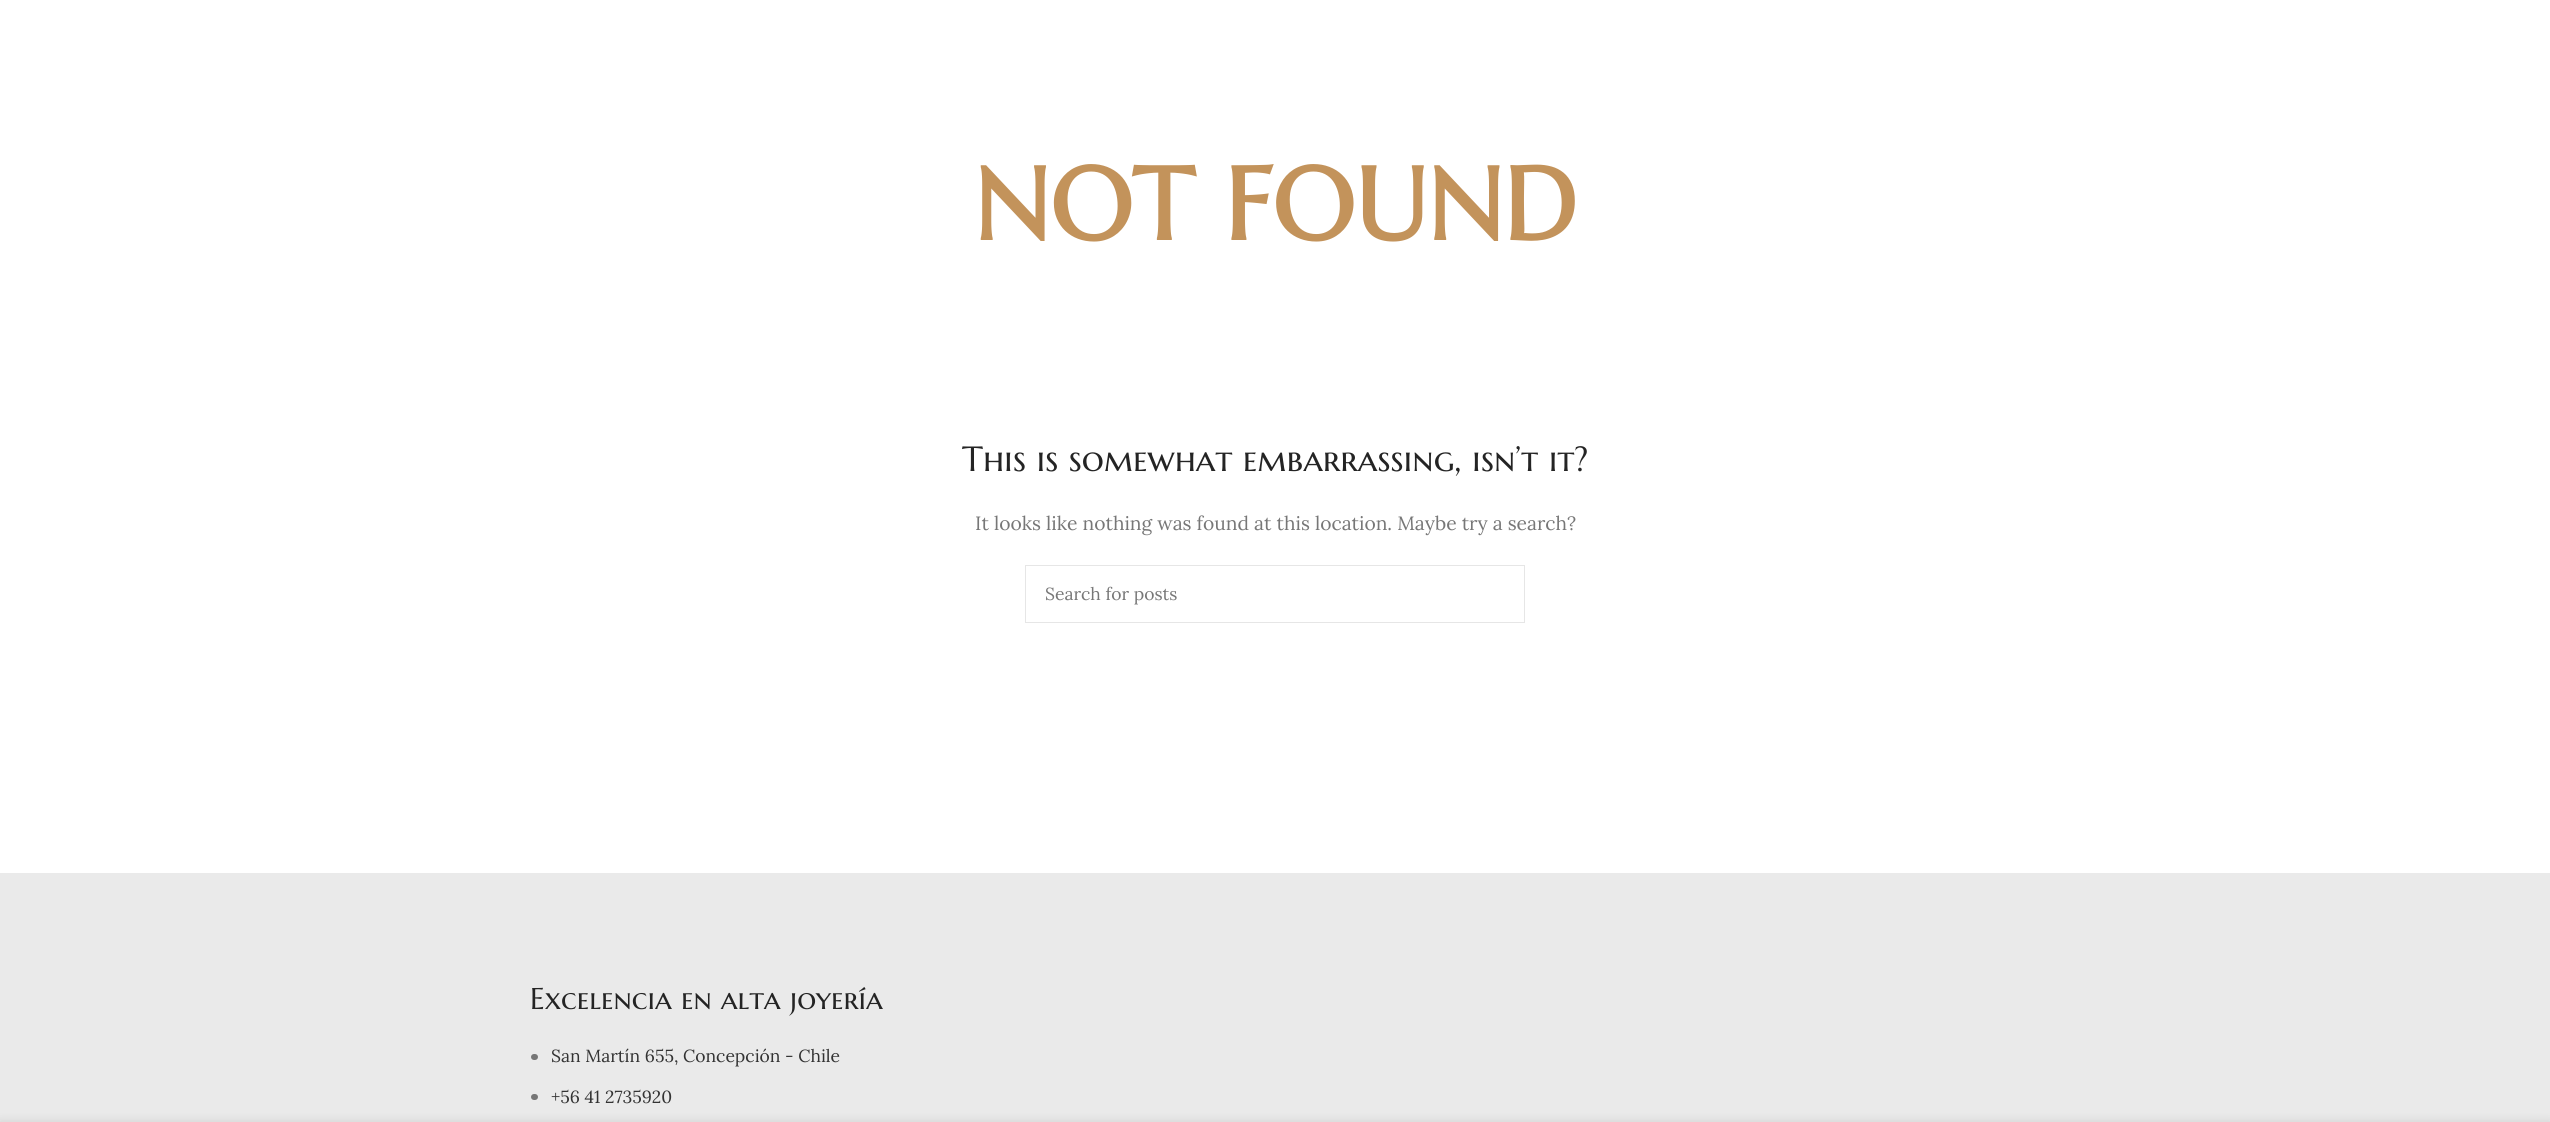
import math
import cairo

surface = cairo.ImageSurface(cairo.FORMAT_RGB24, 2550, 1122)
cr = cairo.Context(surface)
options = cairo.FontOptions()
options.set_hint_metrics(cairo.HINT_METRICS_OFF)
options.set_hint_style(cairo.HINT_STYLE_NONE)
cr.set_font_options(options)
cr.set_miter_limit(4)


def rgb(code):
    cr.set_source_rgb(*(v / 255 for v in bytes.fromhex(code[-6:])))


def rrect(x, y, w, h, r):
    cr.new_sub_path()
    for i, (u, v) in enumerate([(x + w - r, y + h - r), (x + r, y + h - r), (x + r, y + r), (x + w - r, y + r)]):
        cr.arc(u, v, r, i * math.pi / 2, (i + 1) * math.pi / 2)
    cr.close_path()


def soft_shadow(x, y, w, h, r, blur, alpha):
    cr.push_group_with_content(cairo.CONTENT_ALPHA)
    cr.set_operator(cairo.OPERATOR_SOURCE)
    for i in range(15, -16, -2):
        e = blur * i / 6
        if min(w, h) + 2 * e > 0:
            cr.set_source_rgba(0, 0, 0, alpha * math.erfc((i - 1) / 8.5) / 2)
            rrect(x - e, y - e, w + 2 * e, h + 2 * e, max(0, min(r + e + blur * .6, min(w, h) / 2 + e)))
            cr.fill()
    cr.mask(cr.pop_group())


rgb("#ffffff")
cr.paint()
cr.rectangle(1025.5, 565.5, 499, 57)
rgb("#e6e6e6")
cr.set_line_width(1)
cr.stroke()
rgb("#eaeaea")
cr.rectangle(0, 873, 2550, 249)
cr.fill()
rgb("#767676")
rrect(531, 1054, 7, 6, 3)
cr.fill()
rrect(531, 1094, 7, 6, 3)
cr.fill()
rgb("#000000")
soft_shadow(0, 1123, 2550, 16, 0, 5.5, 0.14)
cr.select_font_face("Marcellus SC", cairo.FONT_SLANT_NORMAL, cairo.FONT_WEIGHT_BOLD)
cr.set_font_size(102.5)
rgb("#c3935b")
cr.move_to(974, 240)
cr.show_text("NOT FOUND")
cr.select_font_face("Marcellus SC")
cr.set_font_size(35)
rgb("#242424")
cr.move_to(962, 471)
cr.show_text("This is somewhat embarrassing, isn’t it?")
cr.select_font_face("Lora")
cr.set_font_size(19.25)
rgb("#777777")
cr.move_to(975, 530)
cr.show_text("It looks like nothing was found at this location. Maybe try a search?")
cr.set_font_size(17.5)
cr.move_to(1045, 600)
cr.show_text("Search for posts")
cr.select_font_face("Marcellus SC")
cr.set_font_size(30)
rgb("#242424")
cr.move_to(530, 1009)
cr.show_text("Excelencia en alta joyería")
cr.select_font_face("Lora")
cr.set_font_size(17.5)
rgb("#333333")
cr.move_to(551, 1062)
cr.show_text("San Martín 655, Concepción - Chile")
cr.move_to(551, 1103)
cr.show_text("+56 41 2735920")
surface.write_to_png("page.png")
